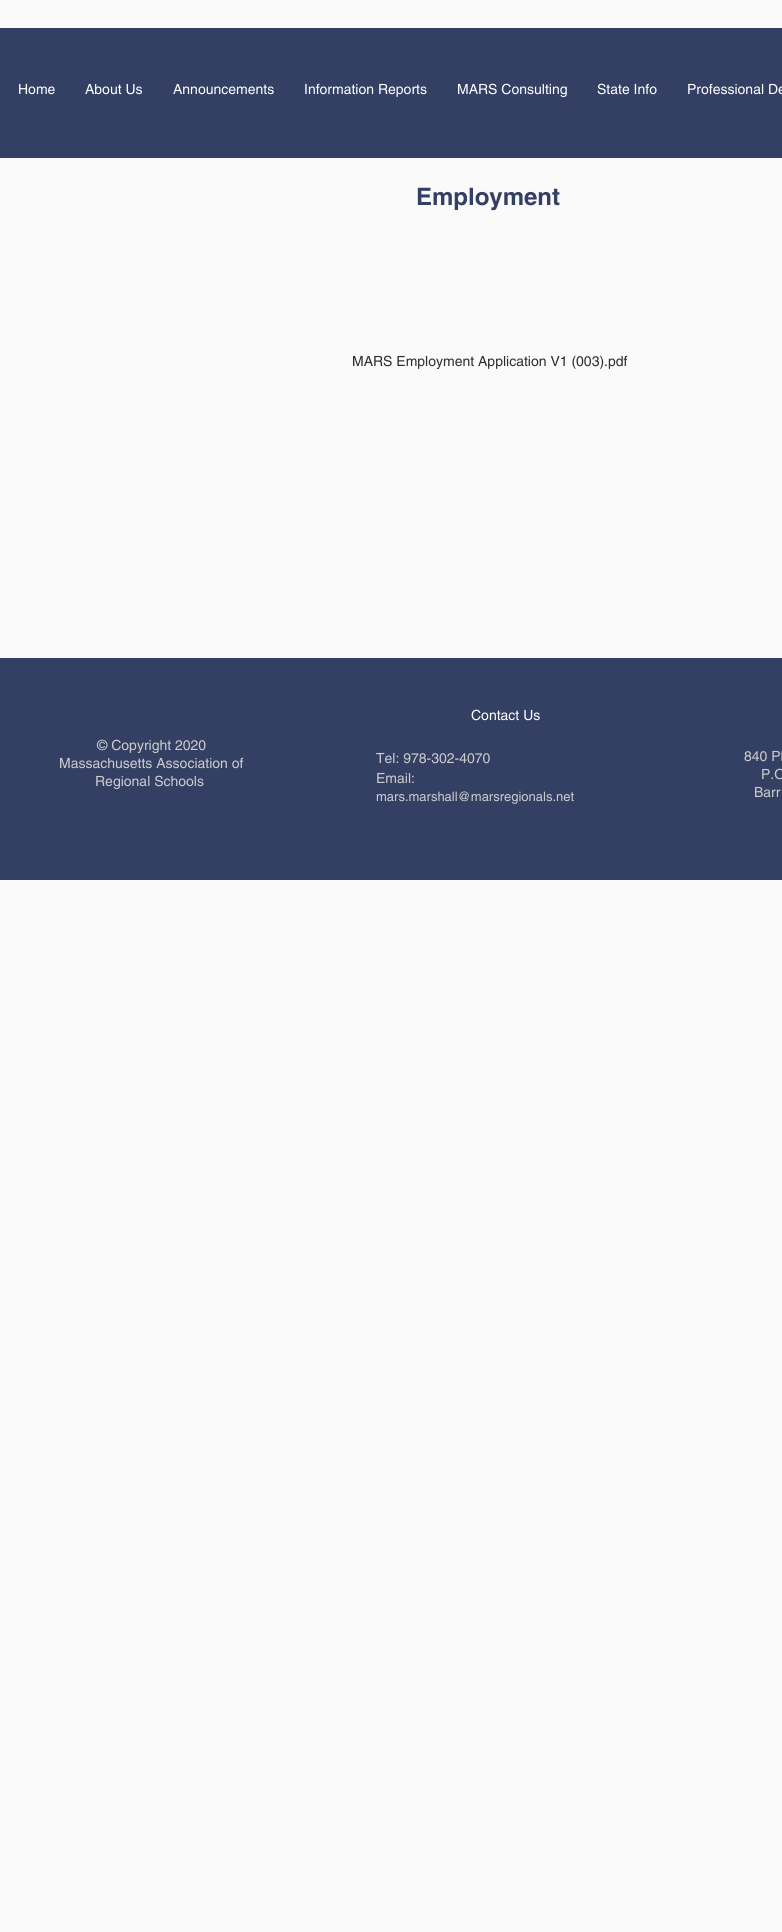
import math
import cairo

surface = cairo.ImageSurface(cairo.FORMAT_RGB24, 782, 1932)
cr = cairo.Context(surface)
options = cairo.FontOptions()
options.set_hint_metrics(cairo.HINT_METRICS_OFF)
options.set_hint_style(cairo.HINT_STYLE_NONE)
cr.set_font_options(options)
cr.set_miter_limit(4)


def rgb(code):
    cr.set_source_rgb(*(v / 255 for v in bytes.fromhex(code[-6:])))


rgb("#fafafa")
cr.paint()
rgb("#343f64")
cr.rectangle(0, 28, 782, 130)
cr.fill()
cr.rectangle(0, 658, 782, 222)
cr.fill()
cr.select_font_face("helvetica")
cr.set_font_size(14)
rgb("#ffffff")
for x, y, s in [
    (18, 94, "Home"),
    (85, 94, "About Us"),
    (173, 94, "Announcements"),
    (304, 94, "Information Reports"),
    (457, 94, "MARS Consulting"),
    (597, 94, "State Info"),
    (687, 94, "Professional De"),
]:
    cr.move_to(x, y)
    cr.show_text(s)
cr.select_font_face("helvetica", cairo.FONT_SLANT_NORMAL, cairo.FONT_WEIGHT_BOLD)
cr.set_font_size(24)
rgb("#343f64")
cr.move_to(416, 205)
cr.show_text("Employment")
cr.select_font_face("helvetica")
cr.set_font_size(14)
rgb("#2f2e2e")
cr.move_to(352, 366)
cr.show_text("MARS Employment Application V1 (003).pdf")
rgb("#ffffff")
cr.move_to(471, 720)
cr.show_text("Contact Us")
rgb("#cccccc")
for x, y, s in [
    (97, 750, "© Copyright 2020"),
    (59, 768, "Massachusetts Association of"),
    (95, 786, "Regional Schools"),
    (376, 763, "Tel: 978-302-4070"),
    (376, 783, "Email:"),
]:
    cr.move_to(x, y)
    cr.show_text(s)
cr.set_font_size(13)
cr.move_to(376, 801)
cr.show_text("mars.marshall@marsregionals.net")
cr.set_font_size(14)
for x, y, s in [
    (744, 761, "840 Pl"),
    (761, 779, "P.O"),
    (754, 797, "Barr"),
]:
    cr.move_to(x, y)
    cr.show_text(s)
surface.write_to_png("page.png")
